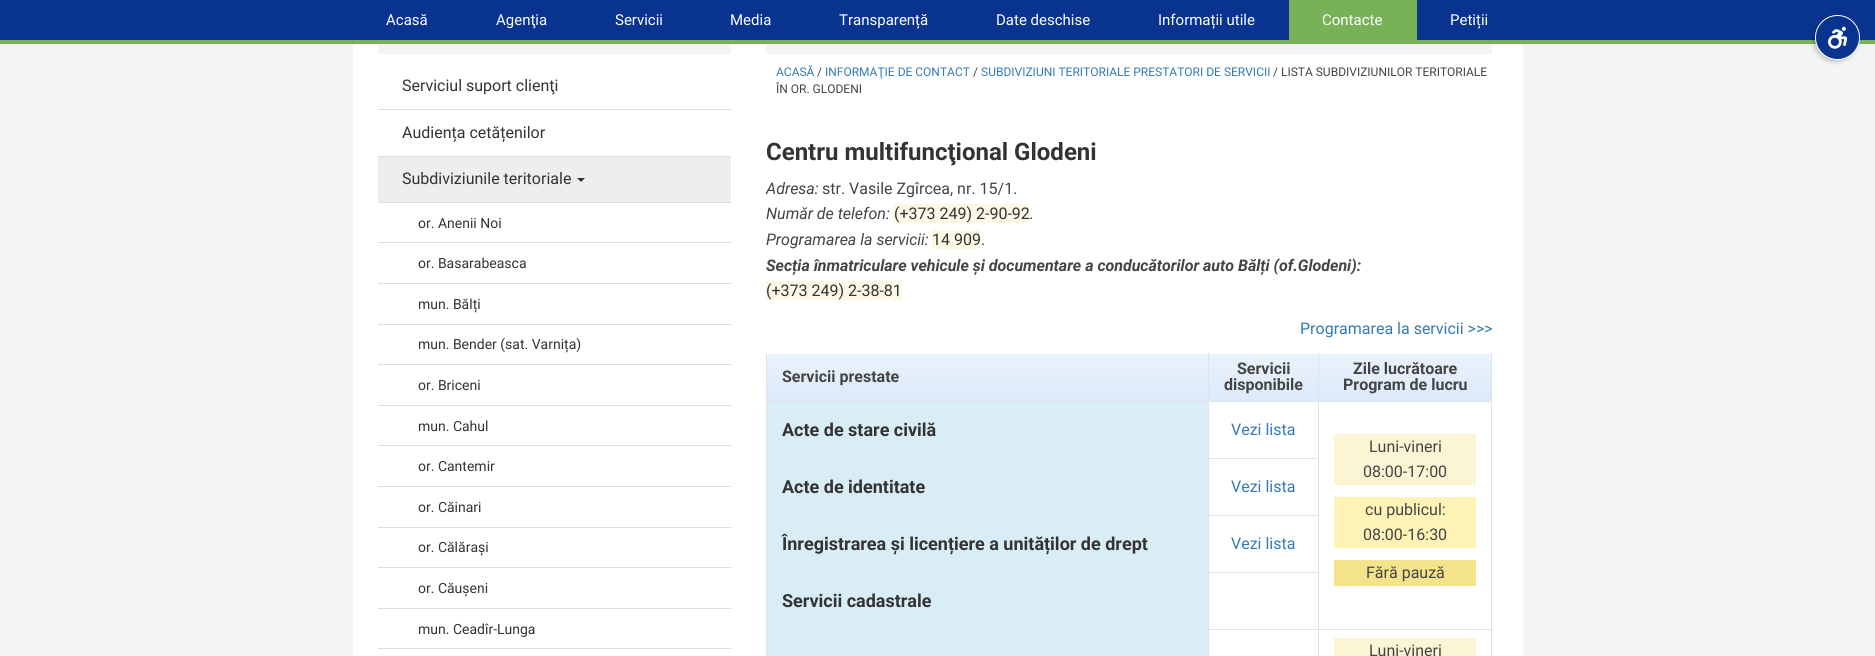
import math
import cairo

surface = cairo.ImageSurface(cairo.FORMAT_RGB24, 1875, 656)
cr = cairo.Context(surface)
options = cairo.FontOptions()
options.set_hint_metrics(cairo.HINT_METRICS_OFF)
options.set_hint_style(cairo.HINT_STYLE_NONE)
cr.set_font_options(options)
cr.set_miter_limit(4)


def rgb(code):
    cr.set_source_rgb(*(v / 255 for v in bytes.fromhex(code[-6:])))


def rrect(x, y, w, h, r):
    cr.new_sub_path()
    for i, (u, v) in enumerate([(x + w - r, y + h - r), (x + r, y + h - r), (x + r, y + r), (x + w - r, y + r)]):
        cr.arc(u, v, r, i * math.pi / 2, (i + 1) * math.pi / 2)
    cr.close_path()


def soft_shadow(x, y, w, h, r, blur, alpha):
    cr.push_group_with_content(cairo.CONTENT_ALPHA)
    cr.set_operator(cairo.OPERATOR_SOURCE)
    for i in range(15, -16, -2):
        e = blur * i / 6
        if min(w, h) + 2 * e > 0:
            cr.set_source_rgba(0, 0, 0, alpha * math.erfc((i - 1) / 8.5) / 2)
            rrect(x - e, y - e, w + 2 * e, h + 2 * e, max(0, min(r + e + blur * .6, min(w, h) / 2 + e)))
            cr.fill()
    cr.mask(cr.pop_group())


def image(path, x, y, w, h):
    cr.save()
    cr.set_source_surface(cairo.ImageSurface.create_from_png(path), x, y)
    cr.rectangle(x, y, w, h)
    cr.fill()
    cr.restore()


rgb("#f4f4f4")
cr.paint()
for x, y, w, h, color in [
    (0, 0, 1875, 40, "#08338f"),
    (0, 40, 1875, 4, "#77b259"),
    (1289, 0, 128, 40, "#77b259"),
]:
    rgb(color)
    cr.rectangle(x, y, w, h)
    cr.fill()
rgb("#000000")
soft_shadow(1813, 17, 45, 45, 22.5, 2, 0.2)
rgb("#08338f")
cr.arc(1837.5, 37.5, 22, 0, 2 * math.pi)
cr.fill_preserve()
rgb("#ffffff")
cr.set_line_width(1)
cr.stroke()
image("img/1.png", 1828, 26, 20, 23)
for x, y, w, h, color in [
    (353, 44, 1170, 612, "#ffffff"),
    (378, 44, 353, 10, "#f4f4f4"),
    (378, 109, 353, 1, "#dedede"),
    (378, 156, 353, 1, "#dedede"),
    (378, 157, 353, 45, "#eeeeee"),
    (378, 202, 353, 1, "#dedede"),
]:
    rgb(color)
    cr.rectangle(x, y, w, h)
    cr.fill()
rgb("#333333")
cr.new_path()
cr.move_to(577, 178)
cr.line_to(585, 178)
cr.line_to(581, 182)
cr.close_path()
cr.fill()
for x, y, w, h, color in [
    (378, 242, 353, 1, "#dedede"),
    (378, 283, 353, 1, "#dedede"),
    (378, 324, 353, 1, "#dedede"),
    (378, 364, 353, 1, "#dedede"),
    (378, 405, 353, 1, "#dedede"),
    (378, 445, 353, 1, "#dedede"),
    (378, 486, 353, 1, "#dedede"),
    (378, 527, 353, 1, "#dedede"),
    (378, 567, 353, 1, "#dedede"),
    (378, 608, 353, 1, "#dedede"),
    (378, 648, 353, 1, "#dedede"),
    (766, 44, 726, 10, "#f4f4f4"),
    (894, 204, 135, 19, "#fcf8e3"),
    (932, 230, 49, 19, "#fcf8e3"),
    (766, 281, 136, 19, "#fcf8e3"),
]:
    rgb(color)
    cr.rectangle(x, y, w, h)
    cr.fill()
gradient = cairo.LinearGradient(988, 353, 988, 401)
gradient.add_color_stop_rgba(0, 0.922, 0.953, 0.988, 1)
gradient.add_color_stop_rgba(1, 0.863, 0.914, 0.976, 1)
cr.set_source(gradient)
cr.rectangle(767, 354, 441, 47)
cr.fill()
rgb("#fbfdfe")
cr.rectangle(767, 353, 441, 1)
cr.fill()
gradient = cairo.LinearGradient(1264, 353, 1264, 401)
gradient.add_color_stop_rgba(0, 0.922, 0.953, 0.988, 1)
gradient.add_color_stop_rgba(1, 0.863, 0.914, 0.976, 1)
cr.set_source(gradient)
cr.rectangle(1209, 353, 109, 48)
cr.fill()
for x, y, w, h, color in [
    (1210, 353, 108, 1, "#fbfdfe"),
    (1318, 401, 174, 1, "#dbe3ec"),
    (1208, 458, 111, 1, "#dbe3ec"),
    (1208, 515, 111, 1, "#dbe3ec"),
    (1208, 572, 111, 1, "#dbe3ec"),
    (1318, 629, 174, 1, "#dbe3ec"),
    (1318, 629, 1, 27, "#dbe3ec"),
    (1208, 629, 111, 1, "#dbe3ec"),
    (1318, 401, 1, 229, "#dbe3ec"),
    (1208, 401, 111, 1, "#dbe3ec"),
    (1208, 629, 1, 27, "#dbe3ec"),
    (766, 629, 443, 1, "#dbe3ec"),
    (1208, 572, 1, 58, "#dbe3ec"),
    (766, 572, 443, 1, "#dbe3ec"),
    (1208, 515, 1, 58, "#dbe3ec"),
    (766, 515, 443, 1, "#dbe3ec"),
    (1208, 458, 1, 58, "#dbe3ec"),
    (766, 458, 443, 1, "#dbe3ec"),
    (1208, 401, 1, 58, "#dbe3ec"),
    (766, 401, 443, 1, "#dbe3ec"),
    (1208, 353, 1, 49, "#dbe3ec"),
]:
    rgb(color)
    cr.rectangle(x, y, w, h)
    cr.fill()
gradient = cairo.LinearGradient(1406, 353, 1406, 401)
gradient.add_color_stop_rgba(0, 0.922, 0.953, 0.988, 1)
gradient.add_color_stop_rgba(1, 0.863, 0.914, 0.976, 1)
cr.set_source(gradient)
cr.rectangle(1319, 353, 172, 48)
cr.fill()
for x, y, w, h, color in [
    (1320, 353, 171, 1, "#fbfdfe"),
    (1318, 353, 1, 49, "#dbe3ec"),
    (767, 402, 441, 56, "#d9edf7"),
    (766, 629, 1, 27, "#dbe3ec"),
    (766, 572, 1, 58, "#dbe3ec"),
    (766, 515, 1, 58, "#dbe3ec"),
    (766, 458, 1, 58, "#dbe3ec"),
    (766, 353, 1, 106, "#dbe3ec"),
    (1491, 629, 1, 27, "#dbe3ec"),
    (1491, 353, 1, 277, "#dbe3ec"),
    (1334, 434, 142, 51, "#fbf5d3"),
    (1334, 497, 142, 51, "#fff3b6"),
    (1334, 560, 142, 26, "#f5e38c"),
    (767, 459, 441, 56, "#d9edf7"),
    (767, 516, 441, 56, "#d9edf7"),
    (767, 573, 441, 56, "#d9edf7"),
    (767, 630, 441, 26, "#d9edf7"),
    (1334, 638, 142, 18, "#fbf5d3"),
]:
    rgb(color)
    cr.rectangle(x, y, w, h)
    cr.fill()
cr.select_font_face("Roboto")
cr.set_font_size(15)
rgb("#ffffff")
for x, y, s in [
    (386, 25, "Acasă"),
    (496, 25, "Agenţia"),
    (615, 25, "Servicii"),
    (730, 25, "Media"),
    (839, 25, "Transparență"),
    (996, 25, "Date deschise"),
    (1158, 25, "Informații utile"),
    (1322, 25, "Contacte"),
    (1450, 25, "Petiții"),
]:
    cr.move_to(x, y)
    cr.show_text(s)
cr.set_font_size(16)
rgb("#333333")
for x, y, s in [
    (402, 91, "Serviciul suport clienţi"),
    (402, 138, "Audiența cetățenilor"),
    (402, 184, "Subdiviziunile teritoriale"),
]:
    cr.move_to(x, y)
    cr.show_text(s)
cr.set_font_size(14)
for x, y, s in [
    (418, 228, "or. Anenii Noi"),
    (418, 268, "or. Basarabeasca"),
    (418, 309, "mun. Bălți"),
    (418, 349, "mun. Bender (sat. Varnița)"),
    (418, 390, "or. Briceni"),
    (418, 431, "mun. Cahul"),
    (418, 471, "or. Cantemir"),
    (418, 512, "or. Căinari"),
    (418, 552, "or. Călărași"),
    (418, 593, "or. Căușeni"),
    (418, 634, "mun. Ceadîr-Lunga"),
]:
    cr.move_to(x, y)
    cr.show_text(s)
cr.set_font_size(12)
rgb("#337ab7")
cr.move_to(776, 76)
cr.show_text("ACASĂ")
rgb("#444444")
cr.move_to(817, 76)
cr.show_text("/")
rgb("#337ab7")
cr.move_to(825, 76)
cr.show_text("INFORMAŢIE DE CONTACT")
rgb("#444444")
cr.move_to(973, 76)
cr.show_text("/")
rgb("#337ab7")
cr.move_to(981, 76)
cr.show_text("SUBDIVIZIUNI TERITORIALE PRESTATORI DE SERVICII")
rgb("#444444")
cr.move_to(1273, 76)
cr.show_text("/ LISTA SUBDIVIZIUNILOR TERITORIALE")
cr.move_to(776, 93)
cr.show_text("ÎN OR. GLODENI")
cr.select_font_face("Roboto", cairo.FONT_SLANT_NORMAL, cairo.FONT_WEIGHT_BOLD)
cr.set_font_size(24)
rgb("#333333")
cr.move_to(766, 160)
cr.show_text("Centru multifuncţional Glodeni")
cr.select_font_face("Roboto", cairo.FONT_SLANT_ITALIC)
cr.set_font_size(16)
rgb("#444444")
cr.move_to(766, 194)
cr.show_text("Adresa:")
cr.select_font_face("Roboto")
cr.move_to(822, 194)
cr.show_text("str. Vasile Zgîrcea, nr. 15/1.")
cr.select_font_face("Roboto", cairo.FONT_SLANT_ITALIC)
cr.move_to(766, 219)
cr.show_text("Număr de telefon:")
cr.select_font_face("Roboto")
rgb("#333333")
cr.move_to(894, 219)
cr.show_text("(+373 249) 2-90-92")
rgb("#444444")
cr.move_to(1029, 219)
cr.show_text(".")
cr.select_font_face("Roboto", cairo.FONT_SLANT_ITALIC)
cr.move_to(766, 245)
cr.show_text("Programarea la servicii:")
cr.select_font_face("Roboto")
rgb("#333333")
cr.move_to(932, 245)
cr.show_text("14 909")
rgb("#444444")
cr.move_to(981, 245)
cr.show_text(".")
cr.select_font_face("Roboto", cairo.FONT_SLANT_ITALIC, cairo.FONT_WEIGHT_BOLD)
cr.move_to(766, 271)
cr.show_text("Secția înmatriculare vehicule și documentare a conducătorilor auto Bălți (of.Glodeni):")
cr.select_font_face("Roboto")
rgb("#333333")
cr.move_to(766, 296)
cr.show_text("(+373 249) 2-38-81")
rgb("#337ab7")
cr.move_to(1300, 334)
cr.show_text("Programarea la servicii >>>")
cr.select_font_face("Roboto", cairo.FONT_SLANT_NORMAL, cairo.FONT_WEIGHT_BOLD)
rgb("#444444")
for x, y, s in [
    (782, 382, "Servicii prestate"),
    (1237, 374, "Servicii"),
    (1224, 390, "disponibile"),
    (1353, 374, "Zile lucrătoare"),
    (1343, 390, "Program de lucru"),
]:
    cr.move_to(x, y)
    cr.show_text(s)
cr.set_font_size(18)
rgb("#333333")
cr.move_to(782, 436)
cr.show_text("Acte de stare civilă")
cr.select_font_face("Roboto")
cr.set_font_size(16)
rgb("#337ab7")
cr.move_to(1231, 435)
cr.show_text("Vezi lista")
rgb("#444444")
for x, y, s in [
    (1369, 452, "Luni-vineri"),
    (1363, 477, "08:00-17:00"),
    (1365, 515, "cu publicul:"),
    (1363, 540, "08:00-16:30"),
    (1366, 578, "Fără pauză"),
]:
    cr.move_to(x, y)
    cr.show_text(s)
cr.select_font_face("Roboto", cairo.FONT_SLANT_NORMAL, cairo.FONT_WEIGHT_BOLD)
cr.set_font_size(18)
rgb("#333333")
cr.move_to(782, 493)
cr.show_text("Acte de identitate")
cr.select_font_face("Roboto")
cr.set_font_size(16)
rgb("#337ab7")
cr.move_to(1231, 492)
cr.show_text("Vezi lista")
cr.select_font_face("Roboto", cairo.FONT_SLANT_NORMAL, cairo.FONT_WEIGHT_BOLD)
cr.set_font_size(18)
rgb("#333333")
cr.move_to(782, 550)
cr.show_text("Înregistrarea și licențiere a unităților de drept")
cr.select_font_face("Roboto")
cr.set_font_size(16)
rgb("#337ab7")
cr.move_to(1231, 549)
cr.show_text("Vezi lista")
cr.select_font_face("Roboto", cairo.FONT_SLANT_NORMAL, cairo.FONT_WEIGHT_BOLD)
cr.set_font_size(18)
rgb("#333333")
cr.move_to(782, 607)
cr.show_text("Servicii cadastrale")
cr.select_font_face("Roboto")
cr.set_font_size(16)
rgb("#444444")
cr.move_to(1369, 656)
cr.show_text("Luni-vineri")
surface.write_to_png("page.png")
